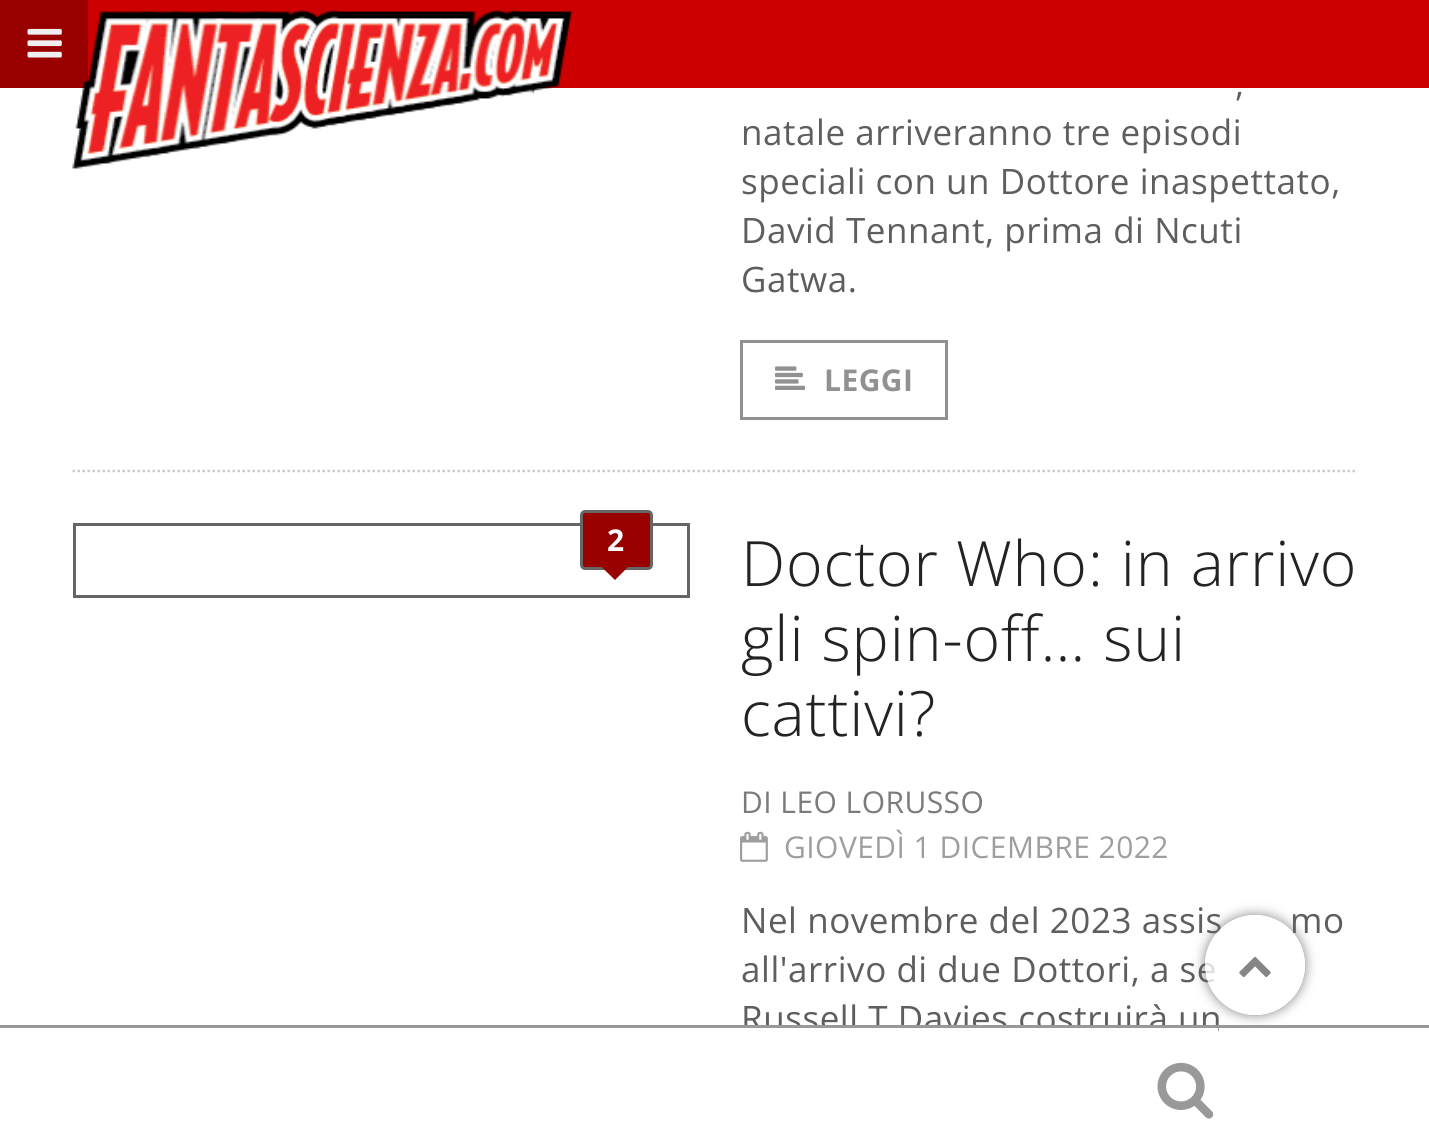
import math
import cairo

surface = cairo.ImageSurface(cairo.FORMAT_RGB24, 1429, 1138)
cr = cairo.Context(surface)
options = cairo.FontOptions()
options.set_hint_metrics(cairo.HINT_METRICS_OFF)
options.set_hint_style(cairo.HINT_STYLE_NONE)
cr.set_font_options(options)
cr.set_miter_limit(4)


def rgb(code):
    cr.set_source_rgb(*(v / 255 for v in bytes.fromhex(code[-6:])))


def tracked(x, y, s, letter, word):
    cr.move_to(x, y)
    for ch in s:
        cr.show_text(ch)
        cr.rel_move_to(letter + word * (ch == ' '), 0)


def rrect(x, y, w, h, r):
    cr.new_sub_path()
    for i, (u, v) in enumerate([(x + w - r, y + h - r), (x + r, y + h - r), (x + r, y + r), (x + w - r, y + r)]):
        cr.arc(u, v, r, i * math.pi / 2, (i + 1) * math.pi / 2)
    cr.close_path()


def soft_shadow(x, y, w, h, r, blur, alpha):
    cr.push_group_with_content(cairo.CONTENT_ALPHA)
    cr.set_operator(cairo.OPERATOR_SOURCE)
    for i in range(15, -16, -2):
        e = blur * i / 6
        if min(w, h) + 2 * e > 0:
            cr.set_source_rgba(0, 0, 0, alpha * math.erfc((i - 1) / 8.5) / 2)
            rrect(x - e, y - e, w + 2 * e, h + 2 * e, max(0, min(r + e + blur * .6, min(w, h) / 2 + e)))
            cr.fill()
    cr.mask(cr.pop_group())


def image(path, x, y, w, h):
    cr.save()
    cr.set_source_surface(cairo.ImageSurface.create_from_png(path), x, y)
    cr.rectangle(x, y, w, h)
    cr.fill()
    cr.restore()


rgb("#ffffff")
cr.paint()
rgb("#cc0000")
cr.rectangle(88, 0, 1341, 88)
cr.fill()
rgb("#990000")
cr.rectangle(0, 0, 88, 88)
cr.fill()
image("img/1.png", 27, 28, 35, 30)
image("img/2.png", 72, 10, 501, 159)
cr.new_path()
cr.move_to(72.5, 471)
cr.line_to(1357.5, 471)
rgb("#cccccc")
cr.set_line_width(2.5)
cr.set_dash([2.5, 2.5])
cr.stroke()
cr.rectangle(741.5, 341.5, 205, 77)
rgb("#919191")
cr.set_line_width(3)
cr.set_dash([])
cr.stroke()
image("img/3.png", 775, 366, 30, 24)
cr.rectangle(74.5, 524.5, 614, 72)
rgb("#666666")
cr.stroke()
rgb("#990000")
rrect(581.5, 511.5, 70, 57, 3.5)
cr.fill_preserve()
rgb("#666666")
cr.stroke()
rgb("#990000")
cr.new_path()
cr.move_to(615, 551.5)
cr.line_to(629, 566)
cr.line_to(615, 580)
cr.line_to(600.5, 566)
cr.close_path()
cr.fill()
image("img/4.png", 740, 831, 28, 31)
image("img/5.png", 1157, 1062, 57, 57)
cr.select_font_face("Open Sans")
cr.set_font_size(35)
rgb("#5e5e5e")
for x, y, s in [
    (1235, 96, ","),
    (741, 145, "natale arriveranno tre episodi"),
    (741, 194, "speciali con un Dottore inaspettato,"),
    (741, 243, "David Tennant, prima di Ncuti"),
    (741, 292, "Gatwa."),
]:
    tracked(x, y, s, 0.55, 0)
cr.select_font_face("Open Sans", cairo.FONT_SLANT_NORMAL, cairo.FONT_WEIGHT_BOLD)
cr.set_font_size(30)
rgb("#919191")
tracked(824, 391, "LEGGI", 0.45, 0)
rgb("#ffffff")
tracked(607, 551, "2", 0.45, 0)
cr.select_font_face("Open Sans Light")
cr.set_font_size(62.5)
rgb("#232323")
for x, y, s in [
    (741, 586, "Doctor Who: in arrivo"),
    (741, 661, "gli spin-off… sui"),
    (741, 736, "cattivi?"),
]:
    tracked(x, y, s, 0.9, 0)
cr.select_font_face("Open Sans")
cr.set_font_size(30)
rgb("#7b7b7b")
tracked(741, 813, "DI LEO LORUSSO", 0.45, 0)
rgb("#9e9e9e")
tracked(784, 858, "GIOVEDÌ 1 DICEMBRE 2022", 0.45, 0)
cr.set_font_size(35)
rgb("#5e5e5e")
for x, y, s in [
    (741, 933, "Nel novembre del 2023 assis"),
    (1290, 933, "mo"),
    (741, 982, "all'arrivo di due Dottori, a se"),
    (741, 1031, "Russell T Davies costruirà un"),
]:
    tracked(x, y, s, 0.55, 0)
rgb("#ffffff")
cr.rectangle(744, 1028, 474, 4)
cr.fill()
rgb("#999999")
cr.rectangle(0, 1025, 1429, 3)
cr.fill()
cr.save()
cr.set_fill_rule(cairo.FILL_RULE_EVEN_ODD)
cr.new_path()
cr.move_to(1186, 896)
cr.line_to(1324, 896)
cr.line_to(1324, 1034)
cr.line_to(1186, 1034)
cr.close_path()
cr.move_to(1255, 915)
cr.curve_to(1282.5, 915, 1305, 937.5, 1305, 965)
cr.curve_to(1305, 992.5, 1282.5, 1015, 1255, 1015)
cr.curve_to(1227.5, 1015, 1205, 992.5, 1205, 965)
cr.curve_to(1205, 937.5, 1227.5, 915, 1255, 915)
cr.close_path()
cr.clip()
rgb("#666666")
soft_shadow(1205, 915, 100, 100, 50, 6, 0.8)
cr.restore()
cr.set_source_rgba(1, 1, 1, 0.8)
cr.arc(1255, 965, 50, 0, 2 * math.pi)
cr.fill()
image("img/6.png", 1239, 956, 32, 22)
surface.write_to_png("page.png")
